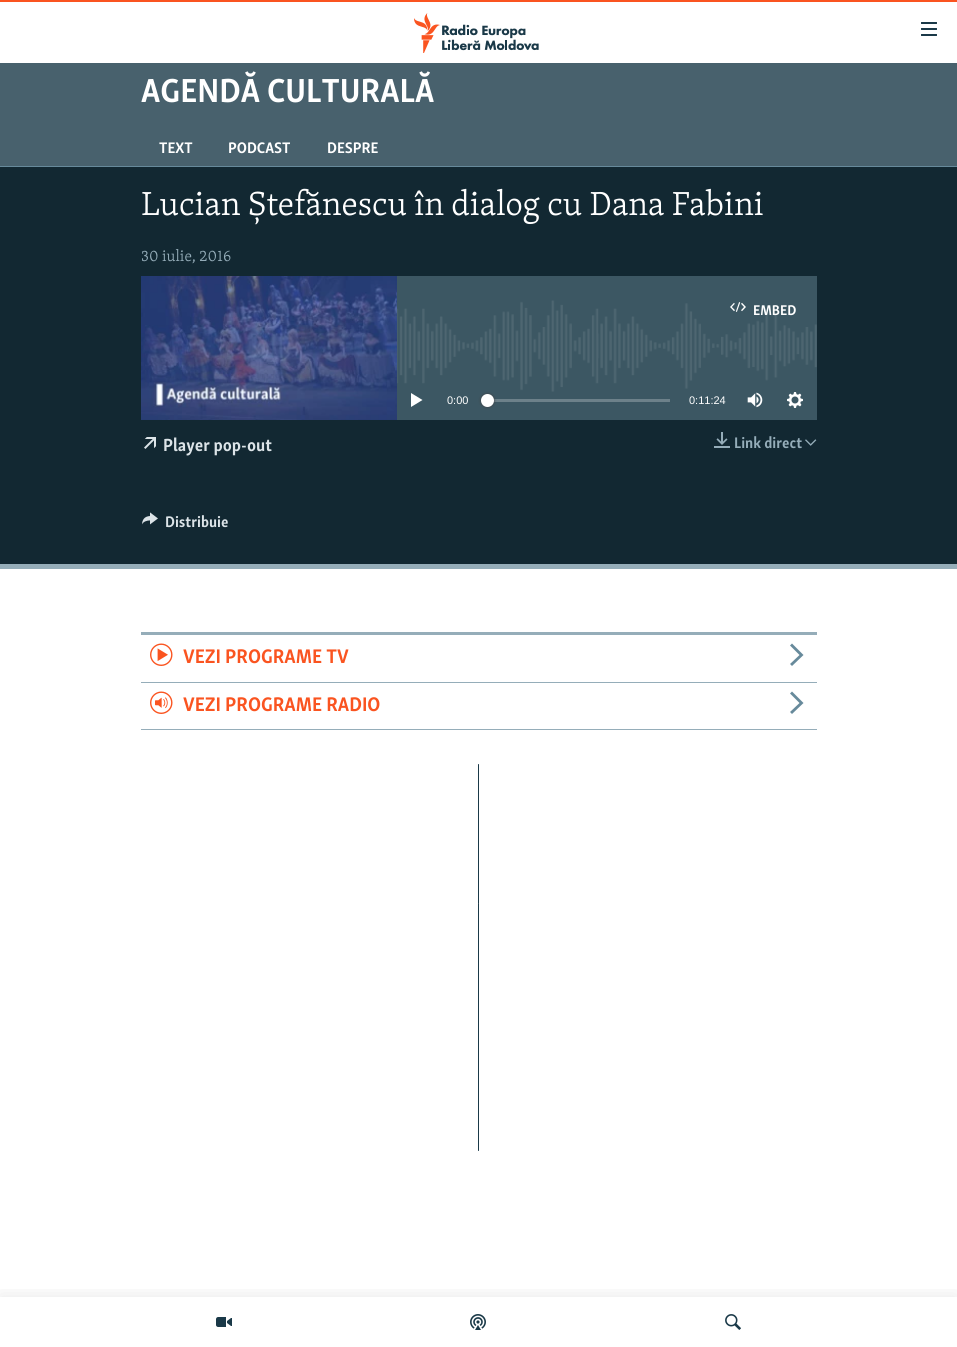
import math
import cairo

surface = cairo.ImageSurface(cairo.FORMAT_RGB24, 957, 1347)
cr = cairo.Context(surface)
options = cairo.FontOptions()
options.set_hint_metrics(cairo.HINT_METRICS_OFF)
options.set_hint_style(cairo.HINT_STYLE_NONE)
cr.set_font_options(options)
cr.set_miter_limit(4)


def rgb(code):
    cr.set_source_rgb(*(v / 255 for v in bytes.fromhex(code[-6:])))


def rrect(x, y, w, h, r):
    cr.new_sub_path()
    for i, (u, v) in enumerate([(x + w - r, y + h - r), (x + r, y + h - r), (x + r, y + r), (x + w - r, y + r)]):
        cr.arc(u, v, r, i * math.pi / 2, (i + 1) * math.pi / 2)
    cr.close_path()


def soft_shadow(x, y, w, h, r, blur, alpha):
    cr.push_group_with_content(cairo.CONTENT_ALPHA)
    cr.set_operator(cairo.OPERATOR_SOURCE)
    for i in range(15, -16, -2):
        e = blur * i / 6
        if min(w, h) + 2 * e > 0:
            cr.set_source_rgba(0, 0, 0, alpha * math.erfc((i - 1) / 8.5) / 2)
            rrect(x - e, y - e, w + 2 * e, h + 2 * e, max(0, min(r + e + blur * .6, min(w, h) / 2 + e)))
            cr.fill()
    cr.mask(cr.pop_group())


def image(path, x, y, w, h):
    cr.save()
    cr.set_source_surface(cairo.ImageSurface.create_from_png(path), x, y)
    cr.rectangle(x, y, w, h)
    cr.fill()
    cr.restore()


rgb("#ffffff")
cr.paint()
rgb("#fa5420")
cr.rectangle(0, 0, 957, 2)
cr.fill()
image("img/1.png", 414, 13, 125, 40)
image("img/2.png", 921, 22, 16, 14)
cr.save()
cr.rectangle(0, 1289, 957, 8)
cr.clip()
rgb("#000000")
soft_shadow(0, 1297, 957, 50, 0, 10, 0.1)
cr.restore()
image("img/3.png", 216, 1317, 16, 10)
image("img/4.png", 470, 1314, 16, 16)
image("img/5.png", 725, 1314, 16, 16)
for x, y, w, h, color in [
    (0, 63, 957, 103, "#48616d"),
    (0, 167, 957, 397, "#122832"),
    (0, 166, 957, 1, "#678a9b"),
    (0, 564, 957, 5, "#95adb9"),
    (397, 276, 420, 144, "#3c5763"),
]:
    rgb(color)
    cr.rectangle(x, y, w, h)
    cr.fill()
image("img/6.png", 397, 300, 420, 92)
image("img/7.png", 141, 276, 256, 144)
image("img/8.png", 730, 302, 16, 10)
rgb("#ffffff")
cr.new_path()
cr.move_to(411, 407)
cr.line_to(422.5, 400)
cr.line_to(411, 393)
cr.close_path()
cr.fill()
rgb("#6d818a")
cr.rectangle(488, 399, 182, 3)
cr.fill()
rgb("#414144")
soft_shadow(481, 394, 13, 13, 6.5, 1.5, 1)
rgb("#ffffff")
cr.arc(487.5, 400.5, 6.5, 0, 2 * math.pi)
cr.fill()
image("img/9.png", 747, 392, 16, 16)
image("img/10.png", 787, 392, 16, 16)
image("img/11.png", 144, 437, 12, 12)
image("img/12.png", 714, 432, 16, 16)
image("img/13.png", 805, 439, 12, 7)
image("img/14.png", 142, 512, 16, 13)
rgb("#95adb9")
cr.rectangle(141, 632, 676, 3)
cr.fill()
cr.rectangle(141, 682, 676, 1)
cr.fill()
image("img/15.png", 150, 643, 23, 23)
rgb("#678a9b")
cr.new_path()
cr.move_to(792, 666)
cr.line_to(803.5, 655)
cr.line_to(792, 643.5)
cr.line_to(790, 645.5)
cr.line_to(799.5, 655)
cr.line_to(790, 664)
cr.close_path()
cr.fill()
rgb("#95adb9")
cr.rectangle(141, 729, 676, 1)
cr.fill()
image("img/16.png", 150, 691, 23, 23)
rgb("#678a9b")
cr.new_path()
cr.move_to(792, 714)
cr.line_to(803.5, 703)
cr.line_to(792, 691.5)
cr.line_to(790, 693.5)
cr.line_to(799.5, 703)
cr.line_to(790, 712)
cr.close_path()
cr.fill()
rgb("#1a3948")
rrect(478, 764, 1, 387, 0.5)
cr.fill()
rgb("#3e4f57")
cr.arc(478.5, 903.5, 0.5, 0, 2 * math.pi)
cr.fill()
cr.select_font_face("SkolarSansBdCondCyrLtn", cairo.FONT_SLANT_NORMAL, cairo.FONT_WEIGHT_BOLD)
cr.set_font_size(34.25)
rgb("#ffffff")
cr.move_to(141, 102)
cr.show_text("AGENDĂ CULTURALĂ")
cr.set_font_size(15.75)
for x, y, s in [
    (159, 153, "TEXT"),
    (228, 153, "PODCAST"),
    (327, 153, "DESPRE"),
]:
    cr.move_to(x, y)
    cr.show_text(s)
cr.select_font_face("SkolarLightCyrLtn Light")
cr.set_font_size(34.25)
cr.move_to(141, 215)
cr.show_text("Lucian Ștefănescu în dialog cu Dana Fabini")
cr.set_font_size(15.75)
rgb("#95adb9")
cr.move_to(141, 261)
cr.show_text("30 iulie, 2016")
cr.select_font_face("SkolarSansBdCondCyrLtn", cairo.FONT_SLANT_NORMAL, cairo.FONT_WEIGHT_BOLD)
cr.set_font_size(14.5)
rgb("#ffffff")
cr.move_to(753, 315)
cr.show_text("EMBED")
cr.select_font_face("Liberation Sans")
cr.set_font_size(11)
cr.move_to(447, 404)
cr.show_text("0:00")
cr.move_to(689, 404)
cr.show_text("0:11:24")
cr.select_font_face("SkolarSansBdCondCyrLtn", cairo.FONT_SLANT_NORMAL, cairo.FONT_WEIGHT_BOLD)
cr.set_font_size(18)
rgb("#dce4e8")
cr.move_to(163, 451)
cr.show_text("Player pop-out")
cr.set_font_size(15.75)
rgb("#95adb9")
cr.move_to(734, 448)
cr.show_text("Link direct")
rgb("#dce4e8")
cr.move_to(165, 527)
cr.show_text("Distribuie")
cr.set_font_size(20.25)
rgb("#fa5420")
cr.move_to(183, 663)
cr.show_text("VEZI PROGRAME TV")
cr.move_to(183, 711)
cr.show_text("VEZI PROGRAME RADIO")
surface.write_to_png("page.png")
